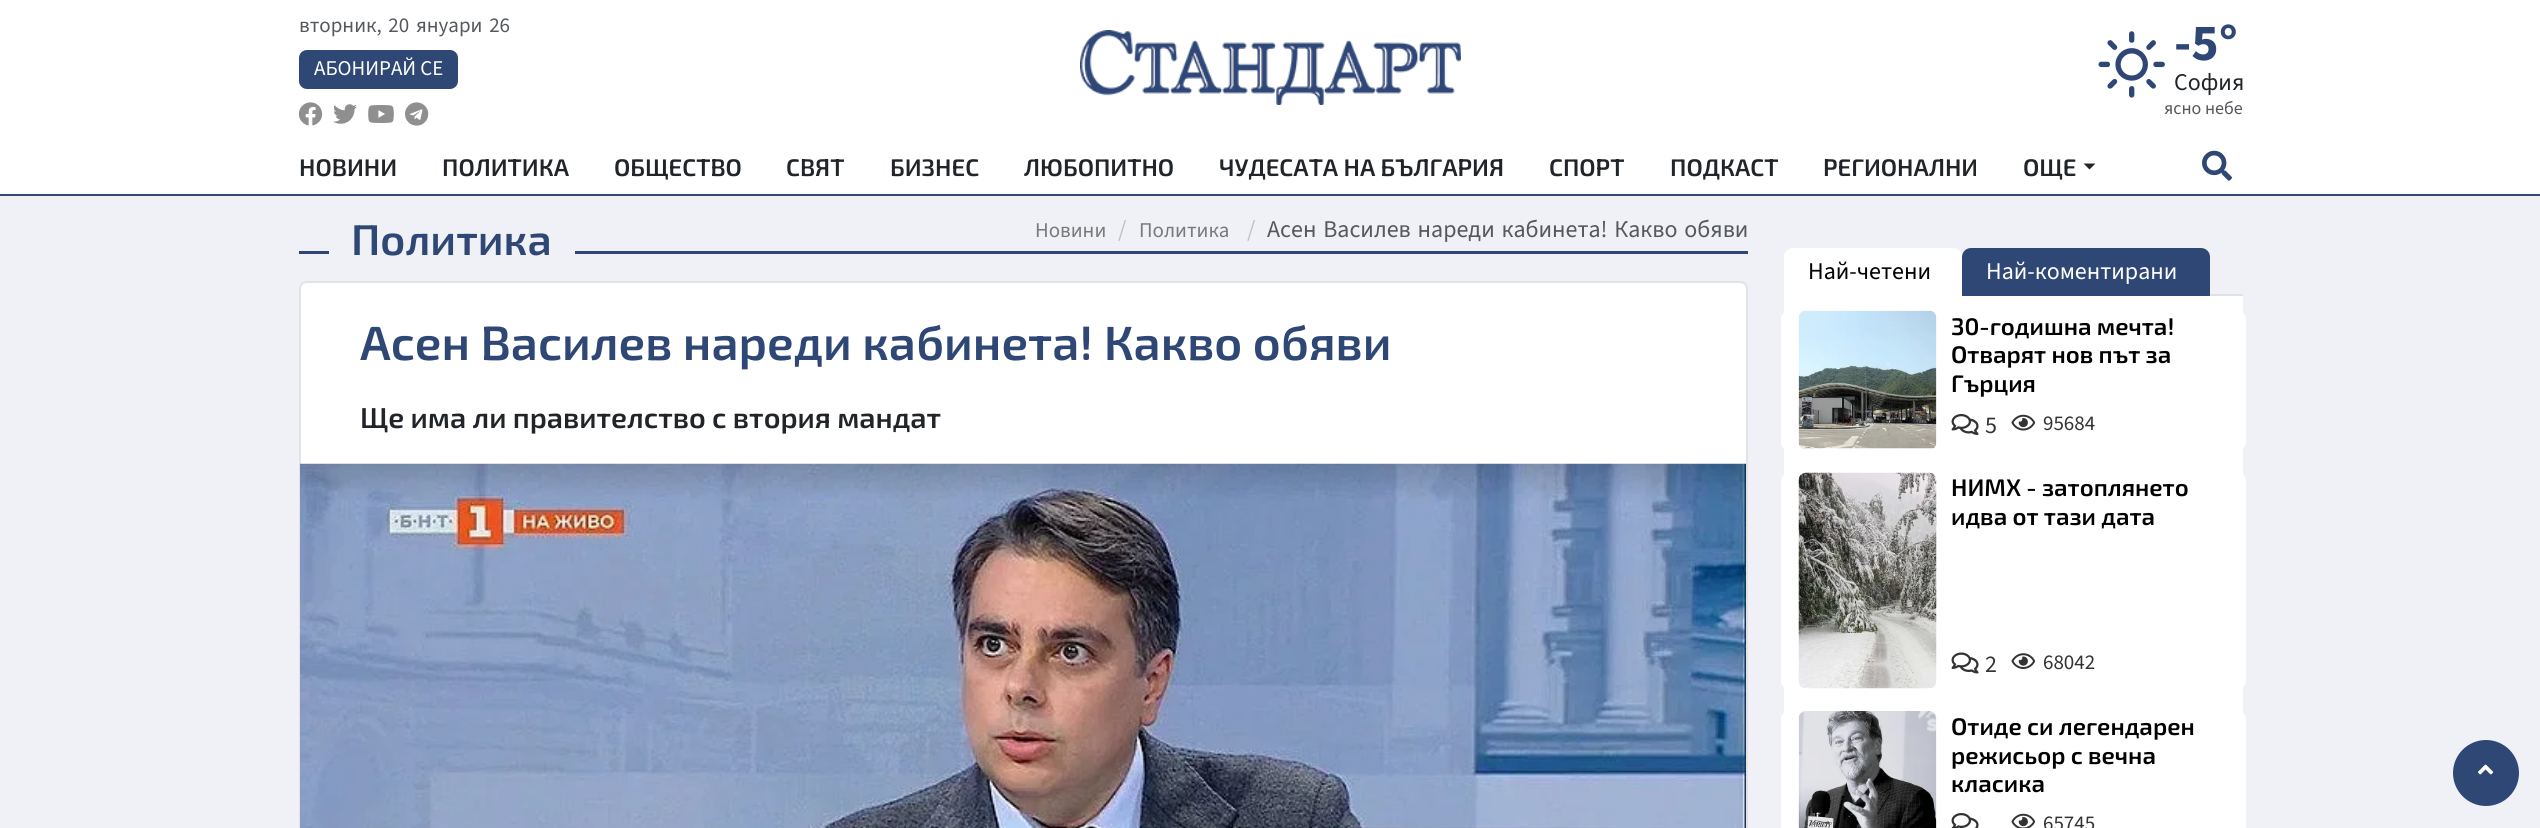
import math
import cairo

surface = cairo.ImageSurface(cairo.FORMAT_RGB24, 2540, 828)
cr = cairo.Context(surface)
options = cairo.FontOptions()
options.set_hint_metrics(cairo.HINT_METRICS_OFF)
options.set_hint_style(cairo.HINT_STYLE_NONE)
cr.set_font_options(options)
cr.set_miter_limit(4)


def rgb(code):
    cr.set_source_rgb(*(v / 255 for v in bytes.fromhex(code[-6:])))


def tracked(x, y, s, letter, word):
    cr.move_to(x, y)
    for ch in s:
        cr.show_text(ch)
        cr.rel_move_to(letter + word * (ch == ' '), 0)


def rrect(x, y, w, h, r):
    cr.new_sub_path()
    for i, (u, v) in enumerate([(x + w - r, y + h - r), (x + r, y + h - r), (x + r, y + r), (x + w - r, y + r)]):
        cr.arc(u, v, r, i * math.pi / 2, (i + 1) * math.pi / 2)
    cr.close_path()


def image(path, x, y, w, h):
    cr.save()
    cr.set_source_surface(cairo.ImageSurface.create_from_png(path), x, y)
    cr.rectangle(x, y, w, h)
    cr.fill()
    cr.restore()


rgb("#f0f1f6")
cr.paint()
rgb("#ffffff")
cr.rectangle(0, 0, 2540, 194)
cr.fill()
rgb("#2f4775")
cr.rectangle(0, 194, 2540, 2)
cr.fill()
rrect(299, 50, 159, 39, 8)
cr.fill()
image("img/1.png", 298, 102, 25, 24)
image("img/2.png", 333, 104, 24, 20)
image("img/3.png", 368, 105, 26, 18)
image("img/4.png", 405, 102, 24, 24)
image("img/5.png", 1080, 30, 381, 75)
image("img/6.png", 2098, 31, 67, 67)
rgb("#212529")
cr.new_path()
cr.move_to(2083.5, 163.5)
cr.line_to(2095.5, 163.5)
cr.line_to(2089.5, 169.5)
cr.close_path()
cr.fill()
image("img/7.png", 2202, 150, 30, 31)
rgb("#2f4775")
cr.rectangle(299, 251, 1449, 3)
cr.fill()
rgb("#f0f1f6")
cr.rectangle(329, 251, 246, 3)
cr.fill()
rgb("#ffffff")
rrect(300, 282, 1447, 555, 7)
cr.fill_preserve()
rgb("#e3e3e3")
cr.stroke()
image("img/8.png", 300, 463, 1446, 365)
rgb("#dee2e6")
cr.rectangle(2210, 294, 33, 2)
cr.fill()
rgb("#ffffff")
cr.new_path()
cr.move_to(1793, 248)
cr.line_to(1953, 248)
cr.curve_to(1958, 248, 1962, 252, 1962, 257)
cr.line_to(1962, 296)
cr.line_to(1784, 296)
cr.line_to(1784, 257)
cr.curve_to(1784, 252, 1788, 248, 1793, 248)
cr.close_path()
cr.fill()
rgb("#2f4775")
cr.new_path()
cr.move_to(1971, 248)
cr.line_to(2201, 248)
cr.curve_to(2206, 248, 2210, 252, 2210, 257)
cr.line_to(2210, 296)
cr.line_to(1962, 296)
cr.line_to(1962, 257)
cr.curve_to(1962, 252, 1966, 248, 1971, 248)
cr.close_path()
cr.fill()
rgb("#ffffff")
cr.rectangle(1784, 296, 459, 417)
cr.fill()
rrect(1781, 311, 465, 139, 8)
cr.fill()
image("img/9.png", 1798, 310, 139, 139)
image("img/10.png", 1951, 414, 28, 21)
image("img/11.png", 2011, 414, 25, 17)
rrect(1781, 473, 465, 216, 8)
cr.fill()
image("img/12.png", 1798, 472, 139, 217)
image("img/13.png", 1951, 652, 28, 22)
image("img/14.png", 2011, 653, 25, 16)
rrect(1781, 711, 465, 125, 8)
cr.fill()
image("img/15.png", 1798, 711, 139, 117)
image("img/16.png", 1951, 813, 28, 15)
image("img/17.png", 2011, 813, 25, 15)
rgb("#2f4775")
cr.arc(2486, 773, 33, 0, 2 * math.pi)
cr.fill()
image("img/18.png", 2478, 764, 15, 11)
cr.select_font_face("Source Sans 3 ExtraLight")
cr.set_font_size(21)
rgb("#55585c")
tracked(299, 32, "вторник, 20 януари 26", 0, 2.5)
rgb("#ffffff")
cr.move_to(314, 75)
cr.show_text("АБОНИРАЙ СЕ")
cr.select_font_face("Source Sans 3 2 ExtraLight")
cr.set_font_size(52)
rgb("#2f4775")
cr.move_to(2174, 60)
cr.show_text("-5°")
cr.select_font_face("Source Sans 3 ExtraLight")
cr.set_font_size(24)
rgb("#212529")
cr.move_to(2174, 90)
cr.show_text("София")
cr.set_font_size(18)
rgb("#55585c")
cr.move_to(2164, 114)
cr.show_text("ясно небе")
cr.select_font_face("Exo 2 SemiBold")
cr.set_font_size(24)
rgb("#212529")
for x, y, s in [
    (299, 176, "НОВИНИ"),
    (442, 176, "ПОЛИТИКА"),
    (614, 176, "ОБЩЕСТВО"),
    (786, 176, "СВЯТ"),
    (890, 176, "БИЗНЕС"),
    (1024, 176, "ЛЮБОПИТНО"),
    (1219, 176, "ЧУДЕСАТА НА БЪЛГАРИЯ"),
    (1549, 176, "СПОРТ"),
    (1670, 176, "ПОДКАСТ"),
    (1823, 176, "РЕГИОНАЛНИ"),
    (2023, 176, "ОЩЕ"),
]:
    cr.move_to(x, y)
    cr.show_text(s)
cr.set_font_size(43)
rgb("#2f4775")
cr.move_to(351, 255)
cr.show_text("Политика")
cr.select_font_face("Source Sans 3 ExtraLight")
cr.set_font_size(21)
rgb("#797979")
cr.move_to(1035, 237)
cr.show_text("Новини")
cr.set_font_size(24)
rgb("#c1c1c1")
cr.move_to(1118, 237)
cr.show_text("/")
cr.set_font_size(21)
rgb("#797979")
cr.move_to(1139, 237)
cr.show_text("Политика")
cr.set_font_size(24)
rgb("#c1c1c1")
cr.move_to(1247, 237)
cr.show_text("/")
rgb("#55585c")
tracked(1267, 237, "Асен Василев нареди кабинета! Какво обяви", 0, 2)
cr.select_font_face("Exo 2 SemiBold")
cr.set_font_size(48)
rgb("#2f4775")
cr.move_to(360, 360)
cr.show_text("Асен Василев нареди кабинета! Какво обяви")
cr.set_font_size(28.8)
rgb("#212529")
cr.move_to(360, 428)
cr.show_text("Ще има ли правителство с втория мандат")
cr.select_font_face("Source Sans 3 ExtraLight")
cr.set_font_size(24)
rgb("#000000")
cr.move_to(1808, 279)
cr.show_text("Най-четени")
rgb("#ffffff")
cr.move_to(1986, 279)
cr.show_text("Най-коментирани")
cr.select_font_face("Exo 2 SemiBold")
rgb("#000000")
for x, y, s in [
    (1951, 335, "30-годишна мечта!"),
    (1951, 363, "Отварят нов път за"),
    (1951, 392, "Гърция"),
]:
    cr.move_to(x, y)
    cr.show_text(s)
cr.select_font_face("Source Sans 3 ExtraLight")
rgb("#333333")
cr.move_to(1985, 433)
cr.show_text("5")
cr.set_font_size(21)
cr.move_to(2043, 430)
cr.show_text("95684")
cr.select_font_face("Exo 2 SemiBold")
cr.set_font_size(24)
rgb("#000000")
cr.move_to(1951, 496)
cr.show_text("НИМХ - затоплянето")
cr.move_to(1951, 525)
cr.show_text("идва от тази дата")
cr.select_font_face("Source Sans 3 ExtraLight")
rgb("#333333")
cr.move_to(1985, 672)
cr.show_text("2")
cr.set_font_size(21)
cr.move_to(2043, 669)
cr.show_text("68042")
cr.select_font_face("Exo 2 SemiBold")
cr.set_font_size(24)
rgb("#000000")
for x, y, s in [
    (1951, 735, "Отиде си легендарен"),
    (1951, 764, "режисьор с вечна"),
    (1951, 792, "класика"),
]:
    cr.move_to(x, y)
    cr.show_text(s)
cr.select_font_face("Source Sans 3 ExtraLight")
cr.set_font_size(21)
rgb("#333333")
cr.move_to(2043, 830)
cr.show_text("65745")
surface.write_to_png("page.png")
